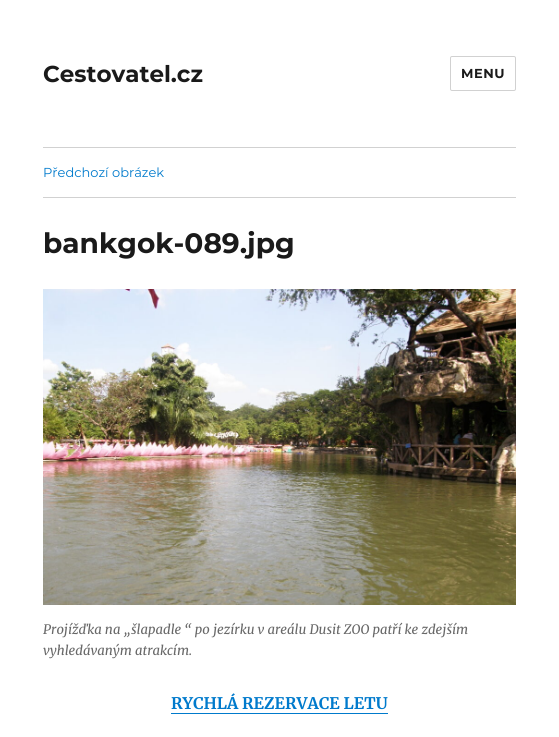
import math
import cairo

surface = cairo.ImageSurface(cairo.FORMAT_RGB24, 559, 737)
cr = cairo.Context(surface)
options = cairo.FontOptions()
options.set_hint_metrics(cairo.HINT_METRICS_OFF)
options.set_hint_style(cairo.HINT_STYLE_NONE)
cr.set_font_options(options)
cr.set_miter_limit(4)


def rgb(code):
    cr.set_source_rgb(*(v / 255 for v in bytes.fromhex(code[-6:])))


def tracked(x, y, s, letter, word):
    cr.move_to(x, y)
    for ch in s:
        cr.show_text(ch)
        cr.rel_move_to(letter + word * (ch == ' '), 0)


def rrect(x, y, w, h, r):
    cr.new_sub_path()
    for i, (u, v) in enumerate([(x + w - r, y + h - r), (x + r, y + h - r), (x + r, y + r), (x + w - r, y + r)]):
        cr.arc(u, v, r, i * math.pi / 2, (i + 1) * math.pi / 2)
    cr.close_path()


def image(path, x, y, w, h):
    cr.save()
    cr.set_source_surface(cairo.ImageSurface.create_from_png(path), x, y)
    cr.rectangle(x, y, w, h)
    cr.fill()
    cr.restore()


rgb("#ffffff")
cr.paint()
rrect(450.5, 56.5, 65, 34, 1.5)
rgb("#d1d1d1")
cr.set_line_width(1)
cr.stroke()
cr.rectangle(43, 147, 473, 1)
cr.fill()
cr.rectangle(43, 197, 473, 1)
cr.fill()
image("img/1.png", 43, 289, 473, 316)
rgb("#007acc")
cr.rectangle(171, 713, 217, 1)
cr.fill()
cr.select_font_face("Montserrat", cairo.FONT_SLANT_NORMAL, cairo.FONT_WEIGHT_BOLD)
cr.set_font_size(23)
rgb("#1a1a1a")
cr.move_to(43, 82)
cr.show_text("Cestovatel.cz")
cr.set_font_size(13)
tracked(461, 78, "MENU", 0.5, 0)
cr.select_font_face("Montserrat")
rgb("#007acc")
cr.move_to(43, 177)
cr.show_text("Předchozí obrázek")
cr.select_font_face("Montserrat", cairo.FONT_SLANT_NORMAL, cairo.FONT_WEIGHT_BOLD)
cr.set_font_size(28)
rgb("#1a1a1a")
cr.move_to(43, 253)
cr.show_text("bankgok-089.jpg")
cr.select_font_face("Merriweather", cairo.FONT_SLANT_ITALIC)
cr.set_font_size(13)
rgb("#686868")
cr.move_to(43, 634)
cr.show_text("Projížďka na „šlapadle “ po jezírku v areálu Dusit ZOO patří ke zdejším")
cr.move_to(43, 655)
cr.show_text("vyhledávaným atrakcím.")
cr.select_font_face("Merriweather", cairo.FONT_SLANT_NORMAL, cairo.FONT_WEIGHT_BOLD)
cr.set_font_size(16)
rgb("#007acc")
cr.move_to(171, 709)
cr.show_text("RYCHLÁ REZERVACE LETU")
surface.write_to_png("page.png")
